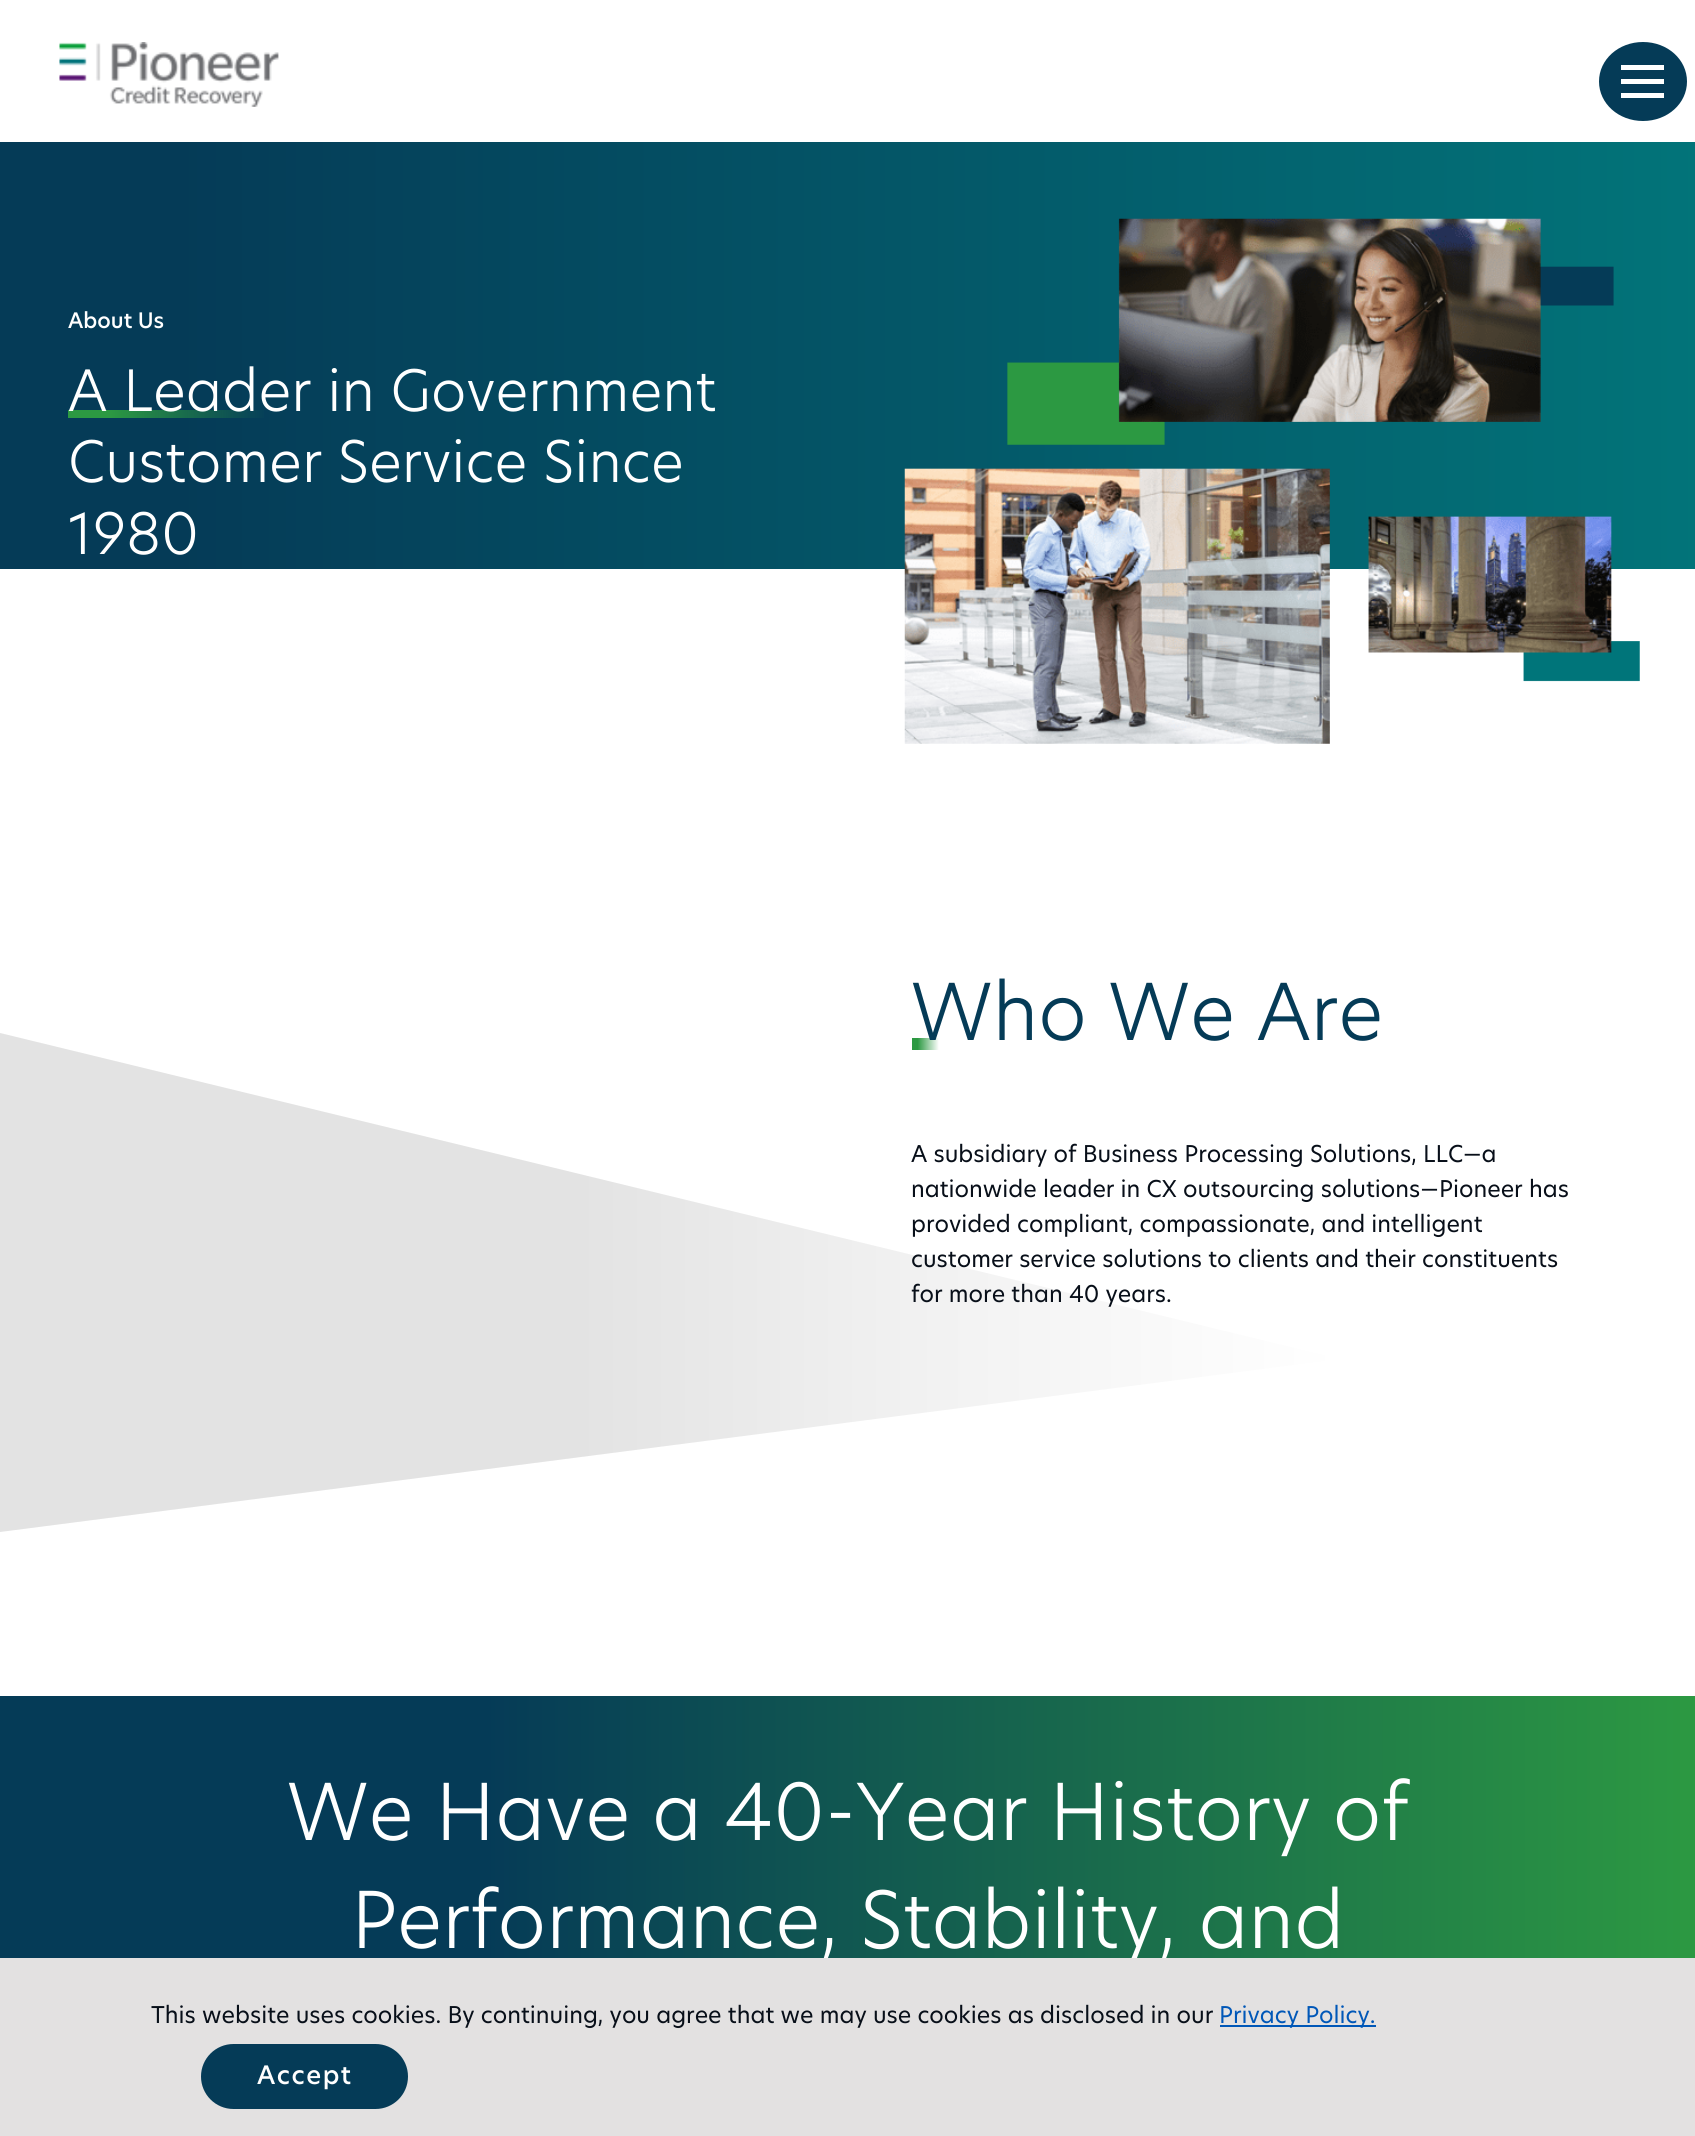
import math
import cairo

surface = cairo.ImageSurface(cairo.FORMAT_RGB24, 1695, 2136)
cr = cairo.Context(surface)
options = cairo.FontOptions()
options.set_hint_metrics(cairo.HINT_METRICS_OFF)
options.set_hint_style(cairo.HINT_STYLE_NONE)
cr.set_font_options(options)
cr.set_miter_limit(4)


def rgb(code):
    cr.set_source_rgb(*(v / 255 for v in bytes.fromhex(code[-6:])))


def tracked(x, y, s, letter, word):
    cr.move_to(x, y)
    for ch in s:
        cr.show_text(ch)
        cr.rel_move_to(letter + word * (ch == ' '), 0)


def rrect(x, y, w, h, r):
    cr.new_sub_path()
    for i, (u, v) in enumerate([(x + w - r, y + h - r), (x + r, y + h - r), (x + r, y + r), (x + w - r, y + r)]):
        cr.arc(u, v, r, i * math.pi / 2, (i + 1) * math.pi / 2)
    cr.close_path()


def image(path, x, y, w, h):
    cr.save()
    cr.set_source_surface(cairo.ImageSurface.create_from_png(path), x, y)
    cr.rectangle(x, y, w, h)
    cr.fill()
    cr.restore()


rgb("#ffffff")
cr.paint()
image("img/1.png", 59, 42, 220, 65)
rgb("#053b57")
cr.new_path()
cr.move_to(1643, 42)
cr.curve_to(1667.5, 42, 1687, 59.5, 1687, 81.5)
cr.curve_to(1687, 103.5, 1667.5, 121, 1643, 121)
cr.curve_to(1618.5, 121, 1599, 103.5, 1599, 81.5)
cr.curve_to(1599, 59.5, 1618.5, 42, 1643, 42)
cr.close_path()
cr.fill()
for x, y, w, h, color in [
    (1621, 65, 43, 5, "#ffffff"),
    (1621, 79, 43, 5, "#ffffff"),
    (1621, 93, 43, 5, "#ffffff"),
]:
    rgb(color)
    cr.rectangle(x, y, w, h)
    cr.fill()
gradient = cairo.LinearGradient(0, 356, 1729, 356)
gradient.add_color_stop_rgba(0.1, 0.02, 0.231, 0.341, 1)
gradient.add_color_stop_rgba(1, 0.008, 0.459, 0.478, 1)
cr.set_source(gradient)
cr.rectangle(0, 142, 1695, 427)
cr.fill()
gradient = cairo.LinearGradient(68, 414, 327, 414)
gradient.add_color_stop_rgba(0.16, 0.173, 0.6, 0.259, 1)
gradient.add_color_stop_rgba(0.77, 0.173, 0.6, 0.259, 0)
cr.set_source(gradient)
cr.rectangle(68, 410, 196, 8)
cr.fill()
image("img/2.png", 904, 218, 736, 526)
gradient = cairo.LinearGradient(1340, 1283, 0, 1283)
gradient.add_color_stop_rgba(0, 1, 1, 1, 1)
gradient.add_color_stop_rgba(0.32, 0.945, 0.945, 0.945, 1)
gradient.add_color_stop_rgba(0.57, 0.89, 0.89, 0.89, 1)
cr.set_source(gradient)
cr.new_path()
cr.move_to(1340, 1359)
cr.line_to(0, 1033)
cr.line_to(0, 1532)
cr.close_path()
cr.fill()
gradient = cairo.LinearGradient(912, 1044, 947, 1044)
gradient.add_color_stop_rgba(0.16, 0.173, 0.6, 0.259, 1)
gradient.add_color_stop_rgba(0.77, 1, 1, 1, 1)
cr.set_source(gradient)
cr.rectangle(912, 1038, 27, 12)
cr.fill()
gradient = cairo.LinearGradient(-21, 1910, 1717, 1910)
gradient.add_color_stop_rgba(0.29, 0.02, 0.231, 0.341, 1)
gradient.add_color_stop_rgba(0.99, 0.173, 0.6, 0.259, 1)
cr.set_source(gradient)
cr.rectangle(0, 1696, 1695, 262)
cr.fill()
cr.select_font_face("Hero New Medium")
cr.set_font_size(21)
rgb("#ffffff")
cr.move_to(68, 328)
cr.show_text("About Us")
cr.select_font_face("Hero New Light")
cr.set_font_size(56)
for x, y, s in [
    (68, 411, "A Leader in Government"),
    (68, 482, "Customer Service Since"),
    (68, 554, "1980"),
]:
    cr.move_to(x, y)
    cr.show_text(s)
cr.set_font_size(77)
rgb("#053b57")
cr.move_to(911, 1040)
cr.show_text("Who We Are")
cr.select_font_face("Hero New")
cr.set_font_size(22.75)
rgb("#080f19")
for x, y, s in [
    (911, 1162, "A subsidiary of Business Processing Solutions, LLC"),
    (1463, 1162, "—a"),
    (911, 1197, "nationwide leader in CX outsourcing solutions—"),
    (1439, 1197, "Pioneer has"),
    (911, 1232, "provided compliant, compassionate, and intelligent"),
    (911, 1267, "customer service solutions to clients and their constituents"),
    (911, 1302, "for more than 40 years."),
]:
    cr.move_to(x, y)
    cr.show_text(s)
cr.select_font_face("Hero New Light")
cr.set_font_size(77)
rgb("#ffffff")
cr.move_to(287, 1840)
cr.show_text("We Have a 40-Year History of")
cr.move_to(351, 1948)
cr.show_text("Performance, Stability, and")
rgb("#e3e1e1")
cr.rectangle(0, 1958, 1695, 178)
cr.fill()
cr.select_font_face("Hero New")
cr.set_font_size(22.75)
rgb("#080f19")
cr.move_to(151, 2023)
cr.show_text("This website uses cookies. By continuing, you agree that we may use cookies as disclosed in our")
rgb("#0057b8")
cr.rectangle(1220, 2025, 156, 2)
cr.fill()
cr.move_to(1219, 2023)
cr.show_text("Privacy Policy.")
rgb("#053b57")
rrect(201, 2044, 207, 65, 32.5)
cr.fill()
cr.select_font_face("Hero New Medium")
cr.set_font_size(25)
rgb("#ffffff")
tracked(257, 2084, "Accept", 1.5, 0)
surface.write_to_png("page.png")
